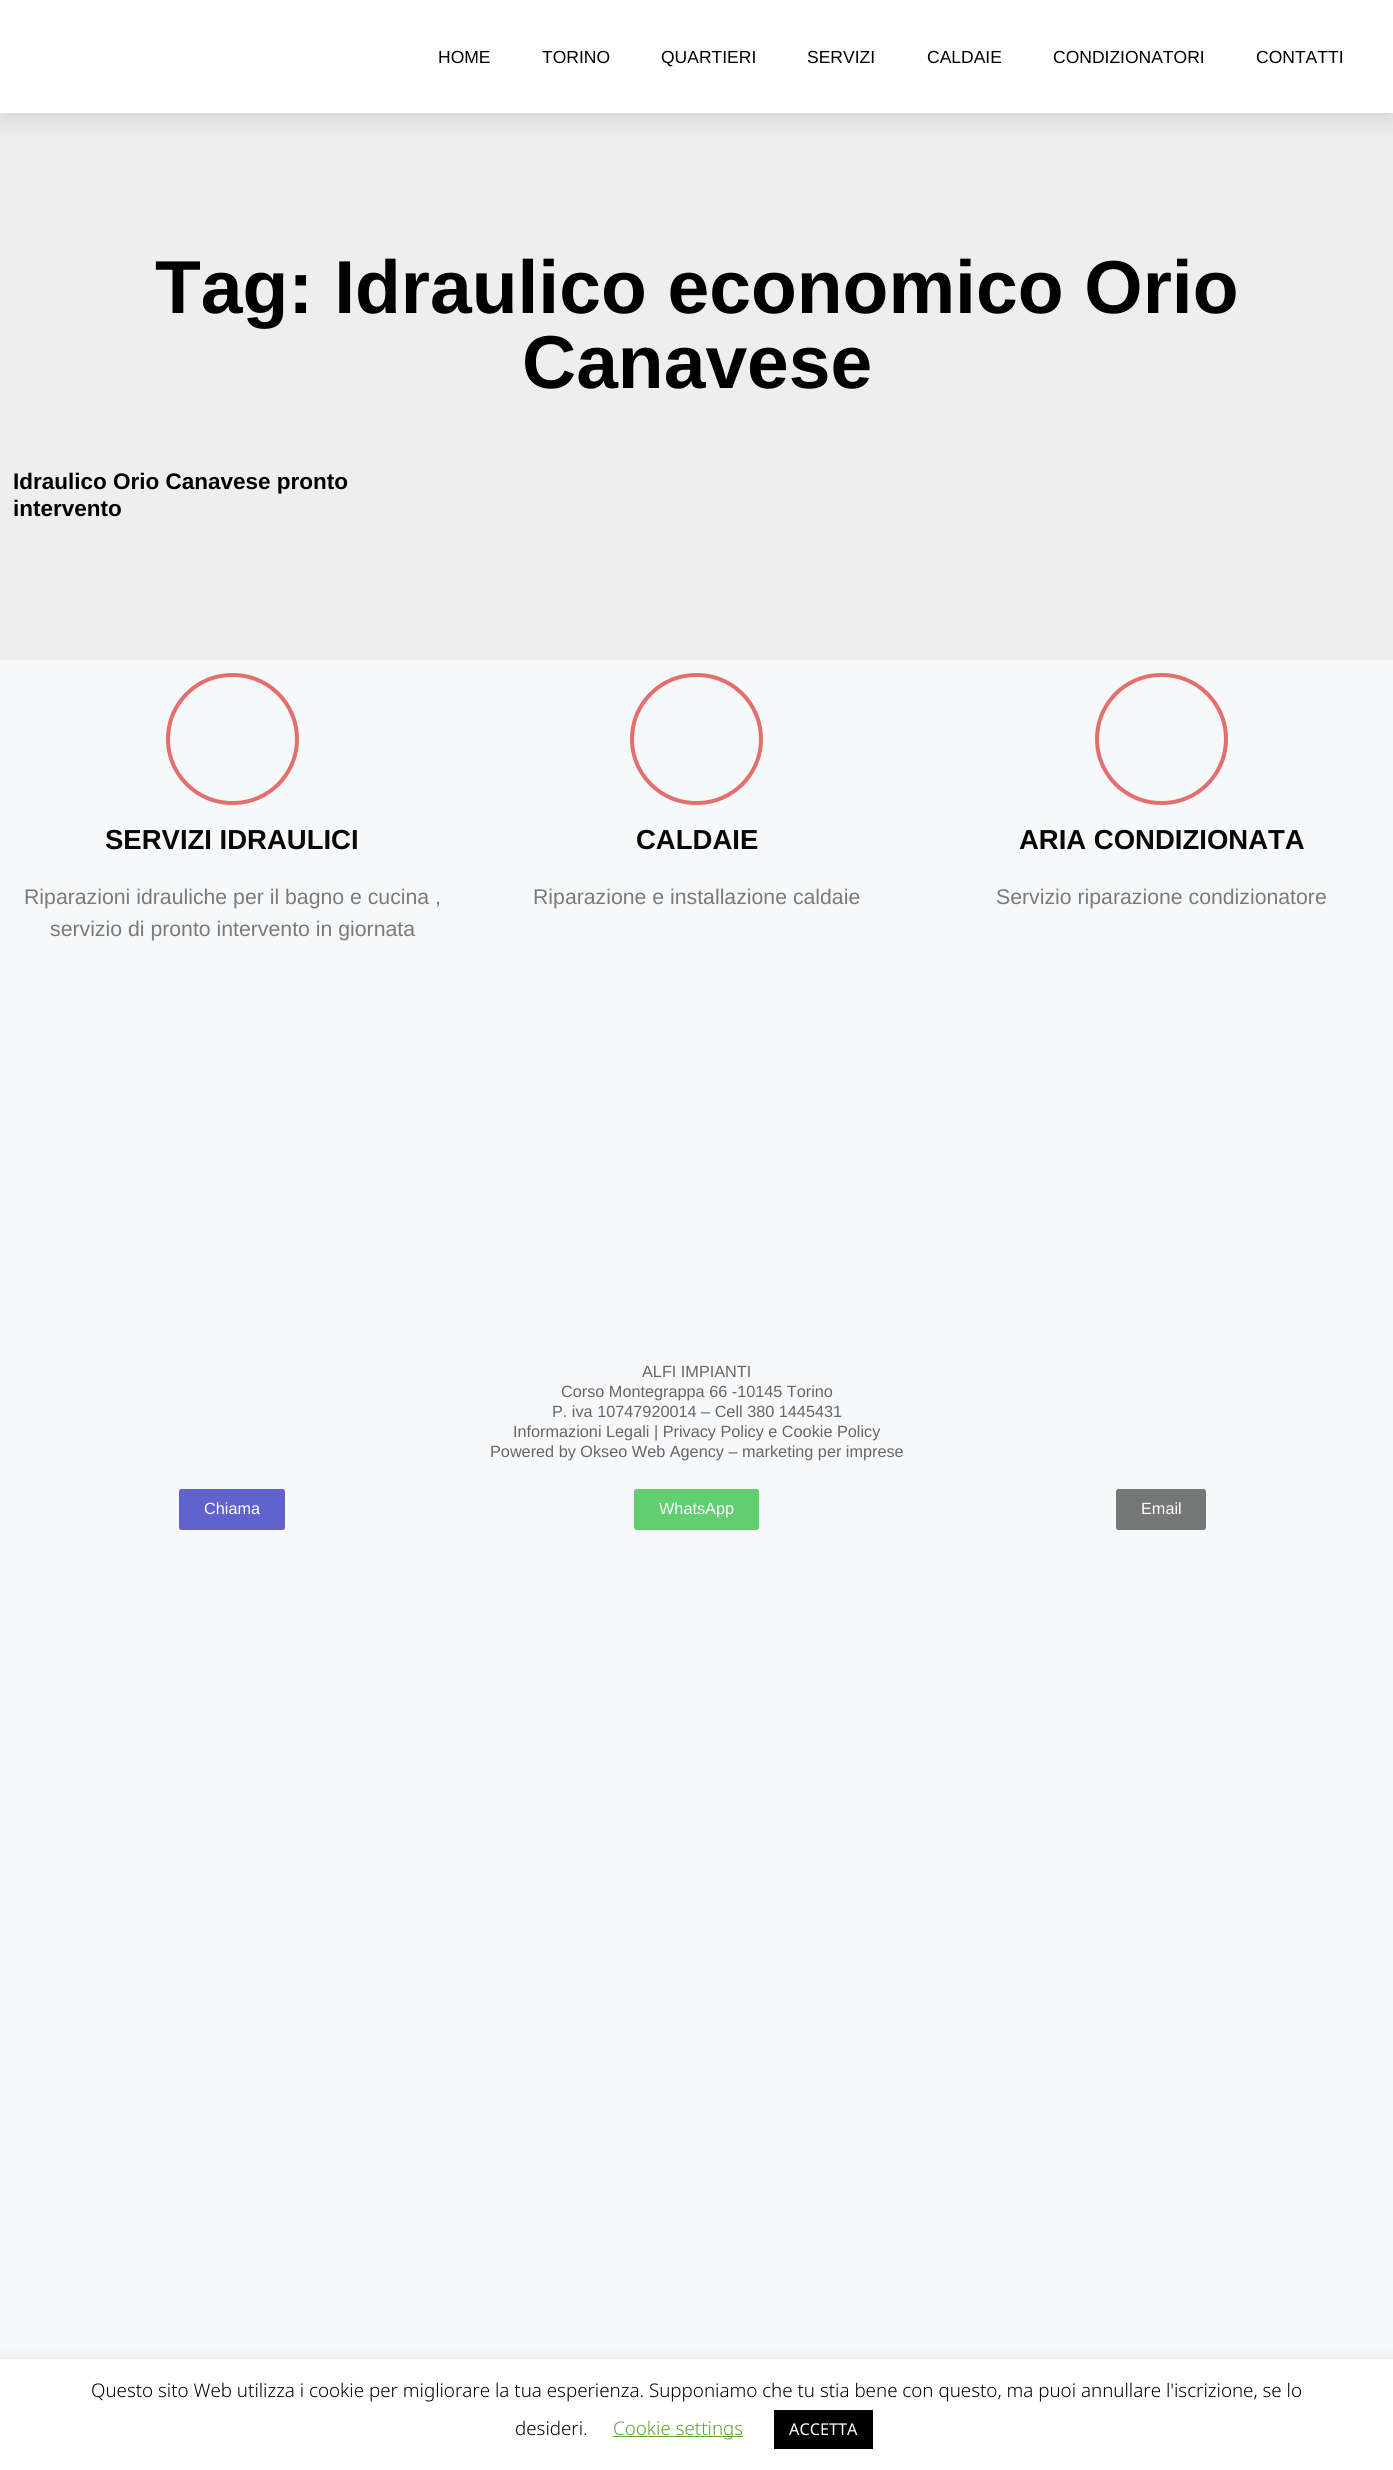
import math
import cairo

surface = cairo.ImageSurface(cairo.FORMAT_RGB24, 1393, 2470)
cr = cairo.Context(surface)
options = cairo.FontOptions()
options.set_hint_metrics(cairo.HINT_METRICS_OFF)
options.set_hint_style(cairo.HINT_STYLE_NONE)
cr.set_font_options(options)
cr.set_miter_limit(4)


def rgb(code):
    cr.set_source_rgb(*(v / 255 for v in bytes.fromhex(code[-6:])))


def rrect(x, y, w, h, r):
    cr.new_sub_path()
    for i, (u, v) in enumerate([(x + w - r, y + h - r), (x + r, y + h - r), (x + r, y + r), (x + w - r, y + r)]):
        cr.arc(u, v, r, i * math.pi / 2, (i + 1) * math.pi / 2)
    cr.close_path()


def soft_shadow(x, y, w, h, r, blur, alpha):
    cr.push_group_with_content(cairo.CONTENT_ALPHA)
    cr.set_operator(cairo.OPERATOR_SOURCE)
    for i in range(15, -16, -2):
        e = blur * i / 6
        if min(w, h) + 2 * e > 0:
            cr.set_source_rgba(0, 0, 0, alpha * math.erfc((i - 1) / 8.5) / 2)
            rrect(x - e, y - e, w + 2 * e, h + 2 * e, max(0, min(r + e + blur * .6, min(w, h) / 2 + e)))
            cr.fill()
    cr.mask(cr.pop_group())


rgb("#f7f8f9")
cr.paint()
rgb("#eeeeee")
cr.rectangle(0, 113, 1393, 547)
cr.fill()
rgb("#000000")
soft_shadow(0, 0, 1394, 113, 0, 15, 0.15)
rgb("#ffffff")
cr.rectangle(0, 0, 1393, 113)
cr.fill()
rrect(168, 675, 129, 128, 64)
rgb("#e46e6e")
cr.set_line_width(4)
cr.stroke()
rrect(632, 675, 129, 128, 64)
cr.stroke()
rrect(1097, 675, 129, 128, 64)
cr.stroke()
rgb("#6162ce")
rrect(179, 1489, 106, 41, 2.5)
cr.fill()
rgb("#61ce70")
rrect(634, 1489, 125, 41, 2.5)
cr.fill()
rgb("#757676")
rrect(1116, 1489, 90, 41, 2.5)
cr.fill()
rgb("#acabab")
soft_shadow(0, 2358, 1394, 111, 0, 6, 0.3)
for x, y, w, h, color in [
    (0, 2359, 1393, 111, "#ffffff"),
    (613, 2436, 130, 1, "#62a329"),
    (774, 2410, 99, 39, "#000000"),
]:
    rgb(color)
    cr.rectangle(x, y, w, h)
    cr.fill()
cr.select_font_face("Liberation Sans")
cr.set_font_size(17.5)
for x, y, s in [
    (438, 63, "HOME"),
    (542, 63, "TORINO"),
    (661, 63, "QUARTIERI"),
    (807, 63, "SERVIZI"),
    (927, 63, "CALDAIE"),
    (1053, 63, "CONDIZIONATORI"),
    (1256, 63, "CONTATTI"),
]:
    cr.move_to(x, y)
    cr.show_text(s)
cr.select_font_face("Liberation Sans", cairo.FONT_SLANT_NORMAL, cairo.FONT_WEIGHT_BOLD)
cr.set_font_size(75)
cr.move_to(155, 313)
cr.show_text("Tag: Idraulico economico Orio")
cr.move_to(522, 388)
cr.show_text("Canavese")
cr.set_font_size(22.5)
cr.move_to(13, 489)
cr.show_text("Idraulico Orio Canavese pronto")
cr.move_to(13, 516)
cr.show_text("intervento")
cr.set_font_size(27.5)
rgb("#080808")
cr.move_to(105, 849)
cr.show_text("SERVIZI IDRAULICI")
cr.select_font_face("Liberation Sans")
cr.set_font_size(21.25)
rgb("#7a7a7a")
cr.move_to(24, 904)
cr.show_text("Riparazioni idrauliche per il bagno e cucina ,")
cr.move_to(50, 936)
cr.show_text("servizio di pronto intervento in giornata")
cr.select_font_face("Liberation Sans", cairo.FONT_SLANT_NORMAL, cairo.FONT_WEIGHT_BOLD)
cr.set_font_size(27.5)
rgb("#080808")
cr.move_to(636, 849)
cr.show_text("CALDAIE")
cr.select_font_face("Liberation Sans")
cr.set_font_size(21.25)
rgb("#7a7a7a")
cr.move_to(533, 904)
cr.show_text("Riparazione e installazione caldaie")
cr.select_font_face("Liberation Sans", cairo.FONT_SLANT_NORMAL, cairo.FONT_WEIGHT_BOLD)
cr.set_font_size(27.5)
rgb("#080808")
cr.move_to(1019, 849)
cr.show_text("ARIA CONDIZIONATA")
cr.select_font_face("Liberation Sans")
cr.set_font_size(21.25)
rgb("#7a7a7a")
cr.move_to(996, 904)
cr.show_text("Servizio riparazione condizionatore")
cr.set_font_size(16.25)
rgb("#686565")
for x, y, s in [
    (642, 1377, "ALFI IMPIANTI"),
    (561, 1397, "Corso Montegrappa 66 -10145 Torino"),
    (552, 1417, "P. iva 10747920014 – Cell 380 1445431"),
    (513, 1437, "Informazioni Legali | Privacy Policy e Cookie Policy"),
    (490, 1457, "Powered by Okseo Web Agency – marketing per imprese"),
]:
    cr.move_to(x, y)
    cr.show_text(s)
rgb("#ffffff")
for x, y, s in [
    (204, 1514, "Chiama"),
    (659, 1514, "WhatsApp"),
    (1141, 1514, "Email"),
]:
    cr.move_to(x, y)
    cr.show_text(s)
cr.select_font_face("Noto Sans Light")
cr.set_font_size(18.75)
rgb("#000000")
cr.move_to(91, 2397)
cr.show_text("Questo sito Web utilizza i cookie per migliorare la tua esperienza. Supponiamo che tu stia bene con questo, ma puoi annullare l'iscrizione, se lo")
cr.move_to(515, 2435)
cr.show_text("desideri.")
rgb("#62a329")
cr.move_to(613, 2435)
cr.show_text("Cookie settings")
cr.select_font_face("Noto Sans")
cr.set_font_size(16.25)
rgb("#ffffff")
cr.move_to(789, 2435)
cr.show_text("ACCETTA")
surface.write_to_png("page.png")
